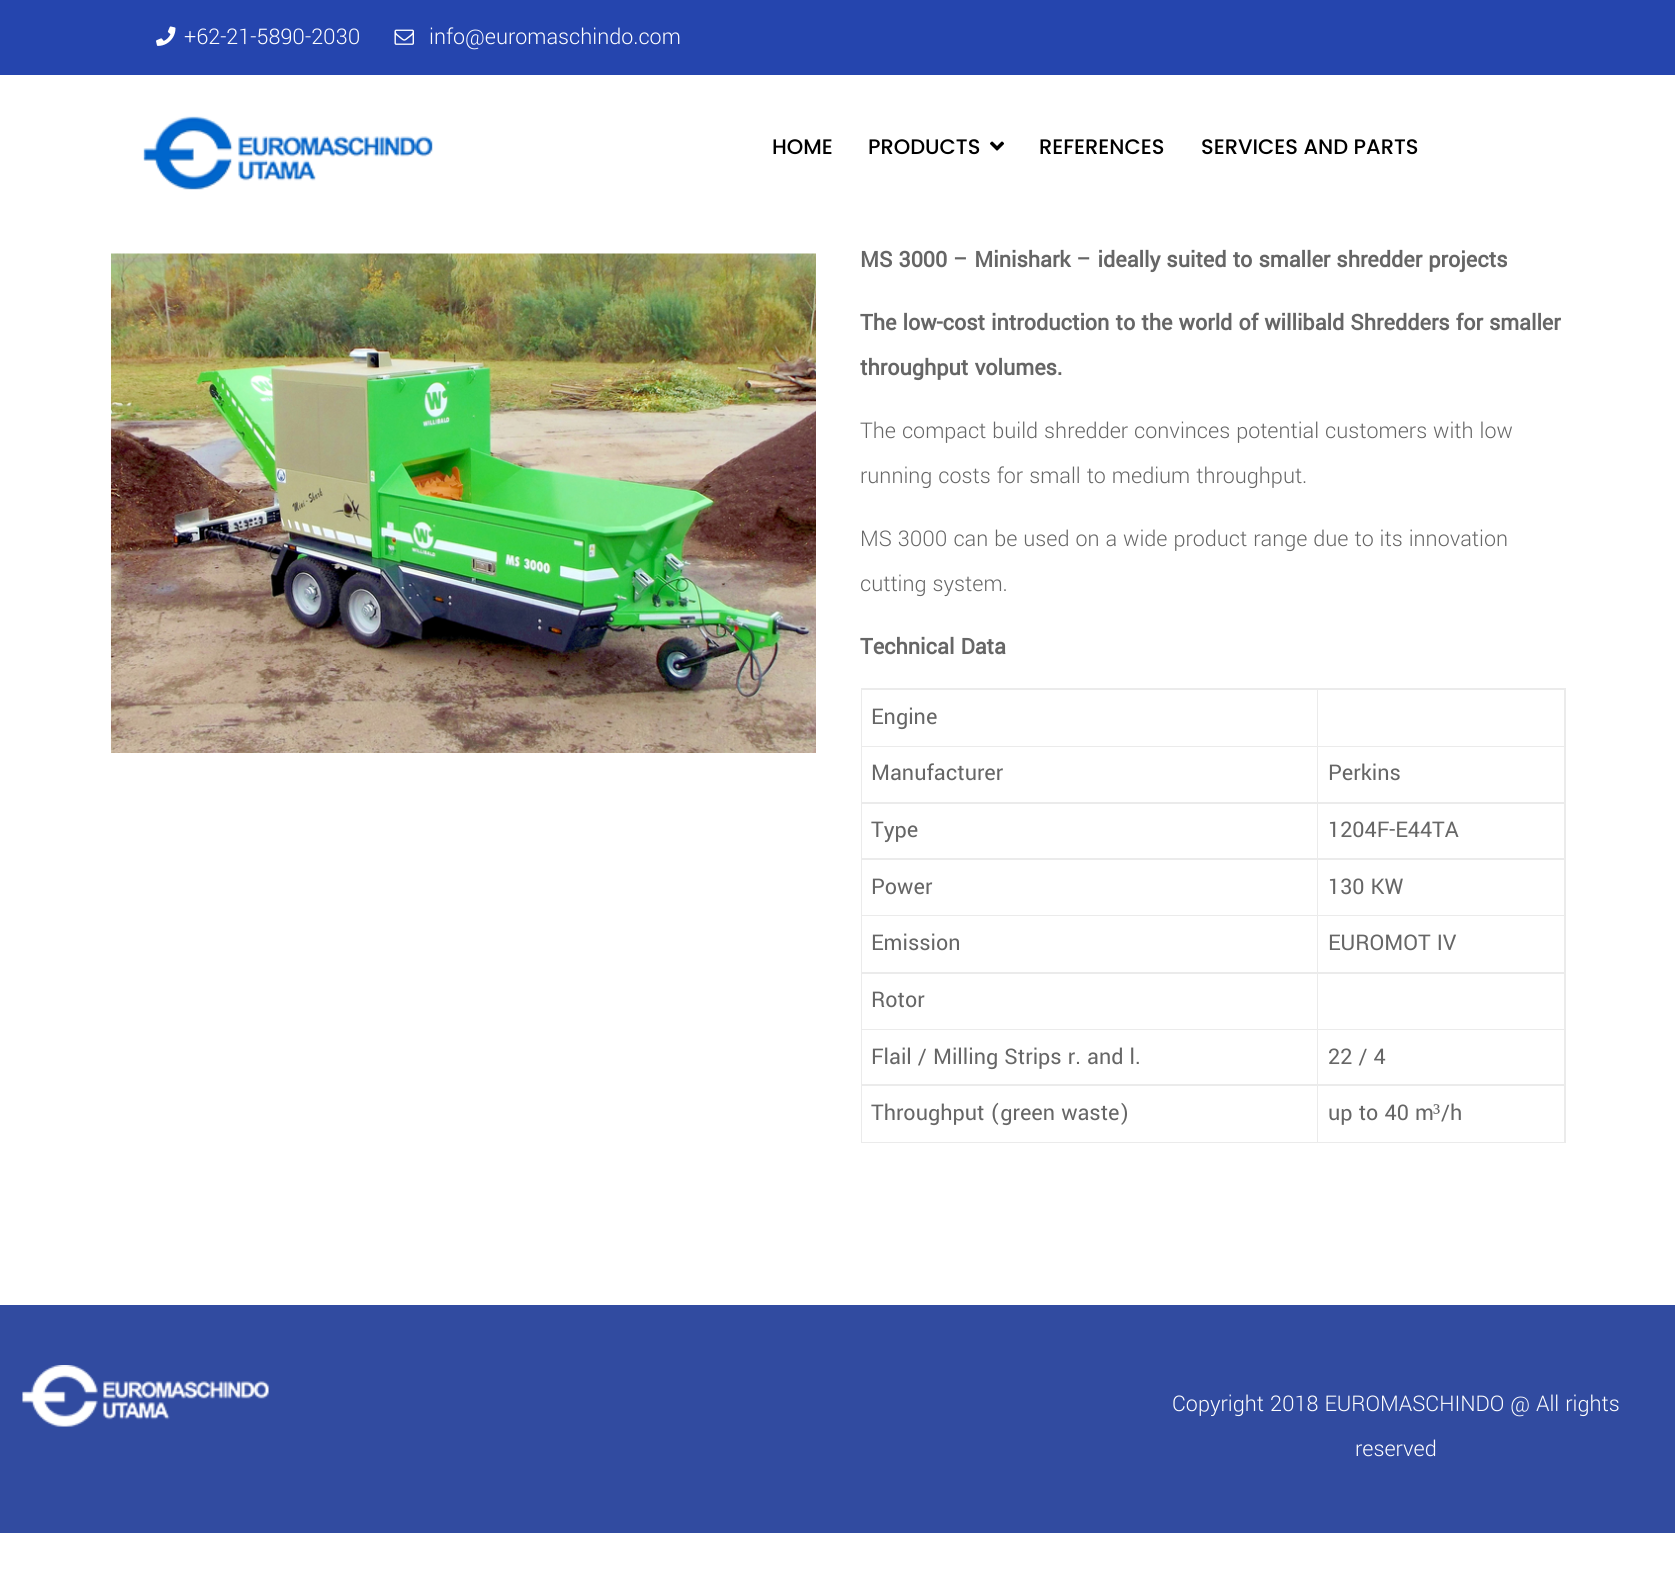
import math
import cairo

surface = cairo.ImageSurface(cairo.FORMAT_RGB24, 1675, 1591)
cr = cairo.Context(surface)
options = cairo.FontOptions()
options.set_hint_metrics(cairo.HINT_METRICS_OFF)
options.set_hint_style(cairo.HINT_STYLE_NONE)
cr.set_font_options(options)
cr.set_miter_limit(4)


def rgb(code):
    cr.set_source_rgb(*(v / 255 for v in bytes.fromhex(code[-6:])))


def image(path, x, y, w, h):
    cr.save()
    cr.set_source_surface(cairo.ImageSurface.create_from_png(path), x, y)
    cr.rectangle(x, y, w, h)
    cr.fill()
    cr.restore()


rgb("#ffffff")
cr.paint()
rgb("#2545ae")
cr.rectangle(0, 0, 1675, 75)
cr.fill()
image("img/1.png", 156, 26, 20, 20)
image("img/2.png", 394, 29, 20, 16)
image("img/3.png", 143, 116, 290, 74)
image("img/4.png", 990, 141, 14, 10)
image("img/5.png", 111, 253, 705, 500)
rgb("#ebebeb")
cr.new_path()
cr.move_to(861, 688)
cr.line_to(1566, 688)
cr.line_to(1566, 690)
cr.line_to(862, 690)
cr.close_path()
cr.fill()
cr.set_source_rgba(0.2, 0.2, 0.2, 0.1)
cr.new_path()
cr.move_to(861, 1143)
cr.line_to(861, 688)
cr.line_to(862, 690)
cr.line_to(862, 1143)
cr.close_path()
cr.fill()
rgb("#ebebeb")
cr.new_path()
cr.move_to(1318, 690)
cr.line_to(1318, 747)
cr.line_to(1317, 746)
cr.line_to(1317, 690)
cr.close_path()
cr.fill()
cr.set_source_rgba(0.2, 0.2, 0.2, 0.1)
cr.new_path()
cr.move_to(1318, 747)
cr.line_to(862, 747)
cr.line_to(862, 746)
cr.line_to(1317, 746)
cr.close_path()
cr.fill()
rgb("#ebebeb")
cr.new_path()
cr.move_to(1566, 690)
cr.line_to(1566, 747)
cr.line_to(1564, 746)
cr.line_to(1564, 690)
cr.close_path()
cr.fill()
cr.set_source_rgba(0.2, 0.2, 0.2, 0.1)
cr.new_path()
cr.move_to(1566, 747)
cr.line_to(1318, 747)
cr.line_to(1318, 746)
cr.line_to(1564, 746)
cr.close_path()
cr.fill()
rgb("#ebebeb")
cr.new_path()
cr.move_to(1318, 747)
cr.line_to(1318, 804)
cr.line_to(1317, 802)
cr.line_to(1317, 747)
cr.close_path()
cr.fill()
cr.set_source_rgba(0.2, 0.2, 0.2, 0.1)
cr.new_path()
cr.move_to(1318, 804)
cr.line_to(862, 804)
cr.line_to(862, 802)
cr.line_to(1317, 802)
cr.close_path()
cr.fill()
rgb("#ebebeb")
cr.new_path()
cr.move_to(1566, 747)
cr.line_to(1566, 804)
cr.line_to(1564, 802)
cr.line_to(1564, 747)
cr.close_path()
cr.fill()
cr.set_source_rgba(0.2, 0.2, 0.2, 0.1)
cr.new_path()
cr.move_to(1566, 804)
cr.line_to(1318, 804)
cr.line_to(1318, 802)
cr.line_to(1564, 802)
cr.close_path()
cr.fill()
rgb("#ebebeb")
cr.new_path()
cr.move_to(1318, 804)
cr.line_to(1318, 860)
cr.line_to(1317, 858)
cr.line_to(1317, 804)
cr.close_path()
cr.fill()
cr.set_source_rgba(0.2, 0.2, 0.2, 0.1)
cr.new_path()
cr.move_to(1318, 860)
cr.line_to(862, 860)
cr.line_to(862, 858)
cr.line_to(1317, 858)
cr.close_path()
cr.fill()
rgb("#ebebeb")
cr.new_path()
cr.move_to(1566, 804)
cr.line_to(1566, 860)
cr.line_to(1564, 858)
cr.line_to(1564, 804)
cr.close_path()
cr.fill()
cr.set_source_rgba(0.2, 0.2, 0.2, 0.1)
cr.new_path()
cr.move_to(1566, 860)
cr.line_to(1318, 860)
cr.line_to(1318, 858)
cr.line_to(1564, 858)
cr.close_path()
cr.fill()
rgb("#ebebeb")
cr.new_path()
cr.move_to(1318, 860)
cr.line_to(1318, 916)
cr.line_to(1317, 915)
cr.line_to(1317, 860)
cr.close_path()
cr.fill()
cr.set_source_rgba(0.2, 0.2, 0.2, 0.1)
cr.new_path()
cr.move_to(1318, 916)
cr.line_to(862, 916)
cr.line_to(862, 915)
cr.line_to(1317, 915)
cr.close_path()
cr.fill()
rgb("#ebebeb")
cr.new_path()
cr.move_to(1566, 860)
cr.line_to(1566, 916)
cr.line_to(1564, 915)
cr.line_to(1564, 860)
cr.close_path()
cr.fill()
cr.set_source_rgba(0.2, 0.2, 0.2, 0.1)
cr.new_path()
cr.move_to(1566, 916)
cr.line_to(1318, 916)
cr.line_to(1318, 915)
cr.line_to(1564, 915)
cr.close_path()
cr.fill()
rgb("#ebebeb")
cr.new_path()
cr.move_to(1318, 916)
cr.line_to(1318, 974)
cr.line_to(1317, 972)
cr.line_to(1317, 916)
cr.close_path()
cr.fill()
cr.set_source_rgba(0.2, 0.2, 0.2, 0.1)
cr.new_path()
cr.move_to(1318, 974)
cr.line_to(862, 974)
cr.line_to(862, 972)
cr.line_to(1317, 972)
cr.close_path()
cr.fill()
rgb("#ebebeb")
cr.new_path()
cr.move_to(1566, 916)
cr.line_to(1566, 974)
cr.line_to(1564, 972)
cr.line_to(1564, 916)
cr.close_path()
cr.fill()
cr.set_source_rgba(0.2, 0.2, 0.2, 0.1)
cr.new_path()
cr.move_to(1566, 974)
cr.line_to(1318, 974)
cr.line_to(1318, 972)
cr.line_to(1564, 972)
cr.close_path()
cr.fill()
rgb("#ebebeb")
cr.new_path()
cr.move_to(1318, 974)
cr.line_to(1318, 1030)
cr.line_to(1317, 1029)
cr.line_to(1317, 974)
cr.close_path()
cr.fill()
cr.set_source_rgba(0.2, 0.2, 0.2, 0.1)
cr.new_path()
cr.move_to(1318, 1030)
cr.line_to(862, 1030)
cr.line_to(862, 1029)
cr.line_to(1317, 1029)
cr.close_path()
cr.fill()
rgb("#ebebeb")
cr.new_path()
cr.move_to(1566, 974)
cr.line_to(1566, 1030)
cr.line_to(1564, 1029)
cr.line_to(1564, 974)
cr.close_path()
cr.fill()
cr.set_source_rgba(0.2, 0.2, 0.2, 0.1)
cr.new_path()
cr.move_to(1566, 1030)
cr.line_to(1318, 1030)
cr.line_to(1318, 1029)
cr.line_to(1564, 1029)
cr.close_path()
cr.fill()
rgb("#ebebeb")
cr.new_path()
cr.move_to(1318, 1030)
cr.line_to(1318, 1086)
cr.line_to(1317, 1084)
cr.line_to(1317, 1030)
cr.close_path()
cr.fill()
cr.set_source_rgba(0.2, 0.2, 0.2, 0.1)
cr.new_path()
cr.move_to(1318, 1086)
cr.line_to(862, 1086)
cr.line_to(862, 1084)
cr.line_to(1317, 1084)
cr.close_path()
cr.fill()
rgb("#ebebeb")
cr.new_path()
cr.move_to(1566, 1030)
cr.line_to(1566, 1086)
cr.line_to(1564, 1084)
cr.line_to(1564, 1030)
cr.close_path()
cr.fill()
cr.set_source_rgba(0.2, 0.2, 0.2, 0.1)
cr.new_path()
cr.move_to(1566, 1086)
cr.line_to(1318, 1086)
cr.line_to(1318, 1084)
cr.line_to(1564, 1084)
cr.close_path()
cr.fill()
rgb("#ebebeb")
cr.new_path()
cr.move_to(1318, 1086)
cr.line_to(1318, 1143)
cr.line_to(1317, 1142)
cr.line_to(1317, 1086)
cr.close_path()
cr.fill()
cr.set_source_rgba(0.2, 0.2, 0.2, 0.1)
cr.new_path()
cr.move_to(1318, 1143)
cr.line_to(862, 1143)
cr.line_to(862, 1142)
cr.line_to(1317, 1142)
cr.close_path()
cr.fill()
rgb("#ebebeb")
cr.new_path()
cr.move_to(1566, 1086)
cr.line_to(1566, 1143)
cr.line_to(1564, 1142)
cr.line_to(1564, 1086)
cr.close_path()
cr.fill()
cr.set_source_rgba(0.2, 0.2, 0.2, 0.1)
cr.new_path()
cr.move_to(1566, 1143)
cr.line_to(1318, 1143)
cr.line_to(1318, 1142)
cr.line_to(1564, 1142)
cr.close_path()
cr.fill()
rgb("#314ba0")
cr.rectangle(0, 1305, 1675, 228)
cr.fill()
image("img/6.png", 22, 1365, 247, 62)
cr.select_font_face("Yantramanav Light")
cr.set_font_size(24)
rgb("#ffffff")
cr.move_to(184, 44)
cr.show_text("+62-21-5890-2030")
cr.move_to(429, 44)
cr.show_text("info@euromaschindo.com")
cr.select_font_face("Poppins Medium")
cr.set_font_size(21)
rgb("#000000")
for x, y, s in [
    (772, 154, "HOME"),
    (868, 154, "PRODUCTS"),
    (1039, 154, "REFERENCES"),
    (1201, 154, "SERVICES AND PARTS"),
]:
    cr.move_to(x, y)
    cr.show_text(s)
cr.select_font_face("Yantramanav", cairo.FONT_SLANT_NORMAL, cairo.FONT_WEIGHT_BOLD)
cr.set_font_size(24)
rgb("#666666")
for x, y, s in [
    (860, 267, "MS 3000 – Minishark – ideally suited to smaller shredder projects"),
    (860, 330, "The low-cost introduction to the world of willibald Shredders for smaller"),
    (860, 375, "throughput volumes."),
]:
    cr.move_to(x, y)
    cr.show_text(s)
cr.select_font_face("Yantramanav Light")
for x, y, s in [
    (860, 438, "The compact build shredder convinces potential customers with low"),
    (860, 483, "running costs for small to medium throughput."),
    (860, 546, "MS 3000 can be used on a wide product range due to its innovation"),
    (860, 591, "cutting system."),
]:
    cr.move_to(x, y)
    cr.show_text(s)
cr.select_font_face("Yantramanav", cairo.FONT_SLANT_NORMAL, cairo.FONT_WEIGHT_BOLD)
cr.move_to(860, 654)
cr.show_text("Technical Data")
cr.select_font_face("Yantramanav")
for x, y, s in [
    (871, 724, "Engine"),
    (871, 780, "Manufacturer"),
    (1328, 780, "Perkins"),
    (871, 837, "Type"),
    (1328, 837, "1204F-E44TA"),
    (871, 894, "Power"),
    (1328, 894, "130 KW"),
    (871, 950, "Emission"),
    (1328, 950, "EUROMOT IV"),
    (871, 1007, "Rotor"),
    (871, 1064, "Flail / Milling Strips r. and l."),
    (1328, 1064, "22 / 4"),
    (871, 1120, "Throughput (green waste)"),
    (1328, 1120, "up to 40 m"),
]:
    cr.move_to(x, y)
    cr.show_text(s)
cr.select_font_face("Liberation Serif")
cr.move_to(1433, 1120)
cr.show_text("³")
cr.select_font_face("Yantramanav")
cr.move_to(1441, 1120)
cr.show_text("/h")
cr.select_font_face("Yantramanav Light")
rgb("#ffffff")
cr.move_to(1172, 1411)
cr.show_text("Copyright 2018 EUROMASCHINDO @ All rights")
cr.move_to(1355, 1456)
cr.show_text("reserved")
surface.write_to_png("page.png")
